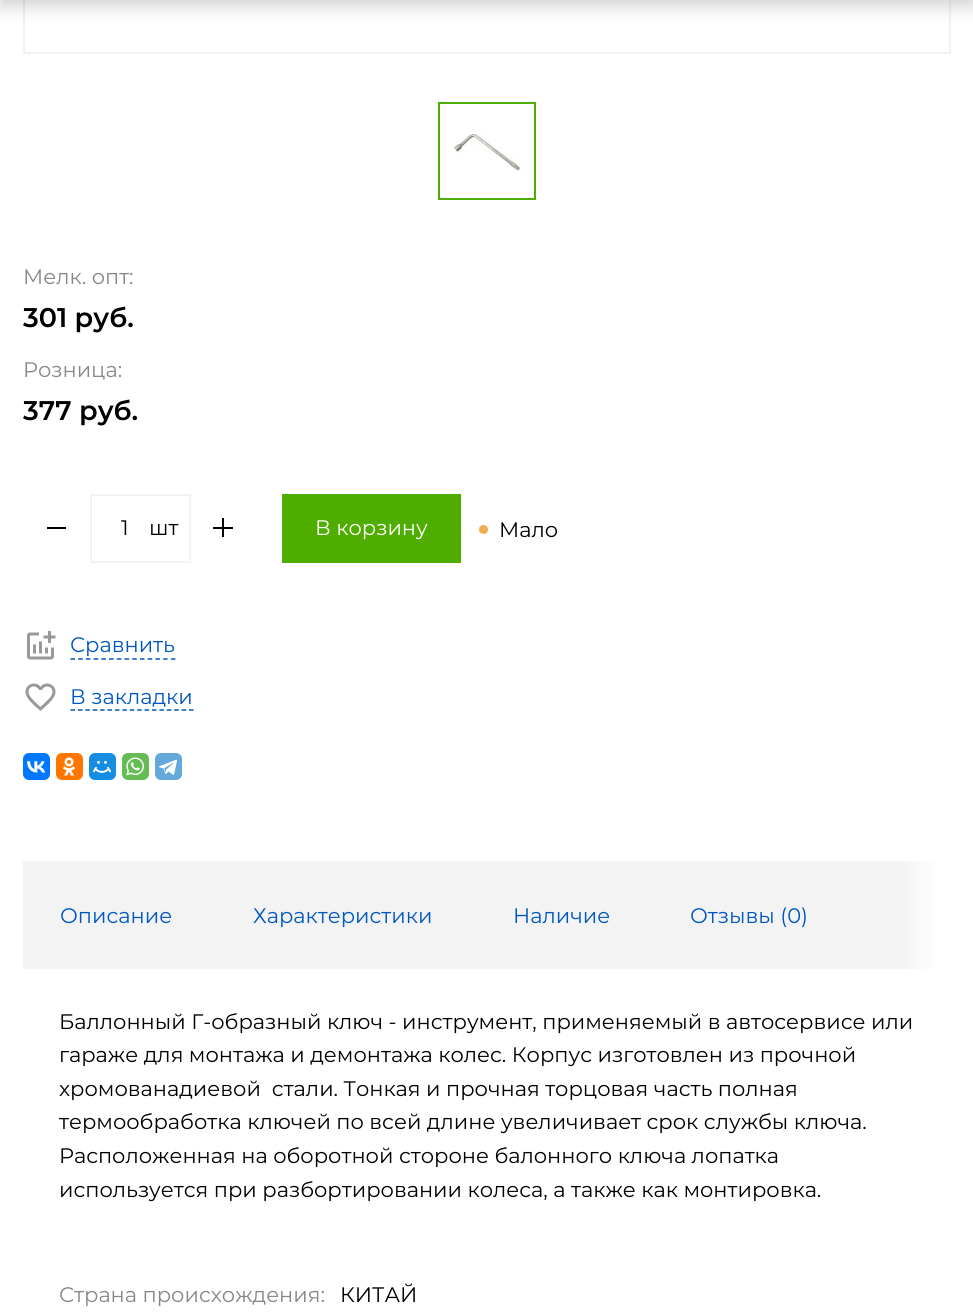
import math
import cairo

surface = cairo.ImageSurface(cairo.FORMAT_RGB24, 973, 1316)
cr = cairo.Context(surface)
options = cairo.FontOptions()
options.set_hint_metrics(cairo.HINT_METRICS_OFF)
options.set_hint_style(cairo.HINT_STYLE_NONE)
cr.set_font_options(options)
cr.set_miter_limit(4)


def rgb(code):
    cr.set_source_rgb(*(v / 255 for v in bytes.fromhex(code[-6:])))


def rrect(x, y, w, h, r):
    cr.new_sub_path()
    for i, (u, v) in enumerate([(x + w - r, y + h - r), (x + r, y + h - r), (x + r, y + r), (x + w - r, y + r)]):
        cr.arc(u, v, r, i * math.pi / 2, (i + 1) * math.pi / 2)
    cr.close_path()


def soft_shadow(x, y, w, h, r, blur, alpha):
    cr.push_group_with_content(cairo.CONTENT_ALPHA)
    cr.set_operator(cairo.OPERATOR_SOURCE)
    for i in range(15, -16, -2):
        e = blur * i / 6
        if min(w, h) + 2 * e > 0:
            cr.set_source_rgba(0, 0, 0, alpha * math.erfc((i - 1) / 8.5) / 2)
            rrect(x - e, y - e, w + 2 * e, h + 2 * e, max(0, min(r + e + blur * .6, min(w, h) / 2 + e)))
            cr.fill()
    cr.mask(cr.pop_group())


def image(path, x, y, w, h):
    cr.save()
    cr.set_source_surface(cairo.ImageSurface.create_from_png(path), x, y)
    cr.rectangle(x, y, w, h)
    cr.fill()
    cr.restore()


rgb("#ffffff")
cr.paint()
cr.rectangle(24, -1, 926, 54)
rgb("#f2f2f2")
cr.stroke()
rgb("#000000")
soft_shadow(0, -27, 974, 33, 0, 9, 0.18)
cr.rectangle(439, 103, 96, 96)
rgb("#4fad00")
cr.stroke()
image("img/1.png", 454, 133, 69, 39)
for x, y, w, h, color in [
    (47, 527, 19, 2, "#000000"),
    (90, 494, 101, 2, "#f3f3f3"),
    (90, 561, 57, 2, "#f3f3f3"),
    (90, 494, 2, 69, "#f3f3f3"),
    (189, 494, 2, 69, "#f3f3f3"),
    (147, 561, 44, 2, "#f3f3f3"),
    (213, 527, 20, 2, "#000000"),
    (222, 518, 2, 19, "#000000"),
    (282, 494, 179, 69, "#4fad00"),
]:
    rgb(color)
    cr.rectangle(x, y, w, h)
    cr.fill()
rgb("#f0ad4e")
cr.arc(483.5, 529.5, 3.5, 0, 2 * math.pi)
cr.fill_preserve()
cr.stroke()
image("img/2.png", 27, 631, 29, 29)
cr.new_path()
cr.move_to(70.5, 659)
cr.line_to(175.5, 659)
rgb("#0057c2")
cr.set_line_width(1.5)
cr.set_dash([4.5, 3.22])
cr.stroke()
image("img/3.png", 25, 683, 31, 28)
cr.new_path()
cr.move_to(70.5, 710)
cr.line_to(193.5, 710)
cr.set_dash([4.5, 2.91])
cr.stroke()
rgb("#0077ff")
rrect(23, 753, 27, 27, 6)
cr.fill()
image("img/4.png", 27, 761, 18, 12)
rgb("#ff7700")
rrect(56, 753, 27, 27, 6)
cr.fill()
image("img/5.png", 63, 757, 12, 19)
rgb("#168de2")
rrect(89, 753, 27, 27, 6)
cr.fill()
image("img/6.png", 93, 760, 18, 13)
rgb("#65bc54")
rrect(122, 753, 27, 27, 6)
cr.fill()
image("img/7.png", 126, 757, 18, 19)
rgb("#64a9dc")
rrect(155, 753, 27, 27, 6)
cr.fill()
image("img/8.png", 159, 759, 18, 16)
rgb("#f3f3f3")
cr.rectangle(23, 861, 917, 108)
cr.fill()
gradient = cairo.LinearGradient(897, 894, 951, 894)
gradient.add_color_stop_rgba(0, 1, 1, 1, 0)
gradient.add_color_stop_rgba(0.8, 1, 1, 1, 1)
gradient.add_color_stop_rgba(1, 1, 1, 1, 1)
cr.set_source(gradient)
cr.rectangle(906, 861, 34, 108)
cr.fill()
cr.select_font_face("Montserrat")
cr.set_font_size(21)
rgb("#878787")
cr.move_to(23, 284)
cr.show_text("Мелк. опт:")
cr.select_font_face("Montserrat SemiBold")
cr.set_font_size(27)
rgb("#000000")
cr.move_to(23, 327)
cr.show_text("301 руб.")
cr.select_font_face("Montserrat")
cr.set_font_size(21)
rgb("#878787")
cr.move_to(23, 377)
cr.show_text("Розница:")
cr.select_font_face("Montserrat SemiBold")
cr.set_font_size(27)
rgb("#000000")
cr.move_to(23, 420)
cr.show_text("377 руб.")
cr.select_font_face("Montserrat")
cr.set_font_size(21)
cr.move_to(121, 535)
cr.show_text("1")
cr.move_to(149, 535)
cr.show_text("шт")
rgb("#ffffff")
cr.move_to(315, 535)
cr.show_text("В корзину")
rgb("#000000")
cr.move_to(499, 537)
cr.show_text("Мало")
rgb("#0057c2")
for x, y, s in [
    (70, 652, "Сравнить"),
    (70, 704, "В закладки"),
    (60, 923, "Описание"),
    (253, 923, "Характеристики"),
    (513, 923, "Наличие"),
    (690, 923, "Отзывы (0)"),
]:
    cr.move_to(x, y)
    cr.show_text(s)
rgb("#000000")
for x, y, s in [
    (59, 1029, "Баллонный Г-образный ключ - инструмент, применяемый в автосервисе или"),
    (59, 1062, "гараже для монтажа и демонтажа колес. Корпус изготовлен из прочной"),
    (59, 1096, "хромованадиевой  стали. Тонкая и прочная торцовая часть полная"),
    (59, 1129, "термообработка ключей по всей длине увеличивает срок службы ключа."),
    (59, 1163, "Расположенная на оборотной стороне балонного ключа лопатка"),
    (59, 1197, "используется при разбортировании колеса, а также как монтировка."),
]:
    cr.move_to(x, y)
    cr.show_text(s)
rgb("#878787")
cr.move_to(59, 1302)
cr.show_text("Страна происхождения:")
rgb("#000000")
cr.move_to(340, 1302)
cr.show_text("КИТАЙ")
surface.write_to_png("page.png")
